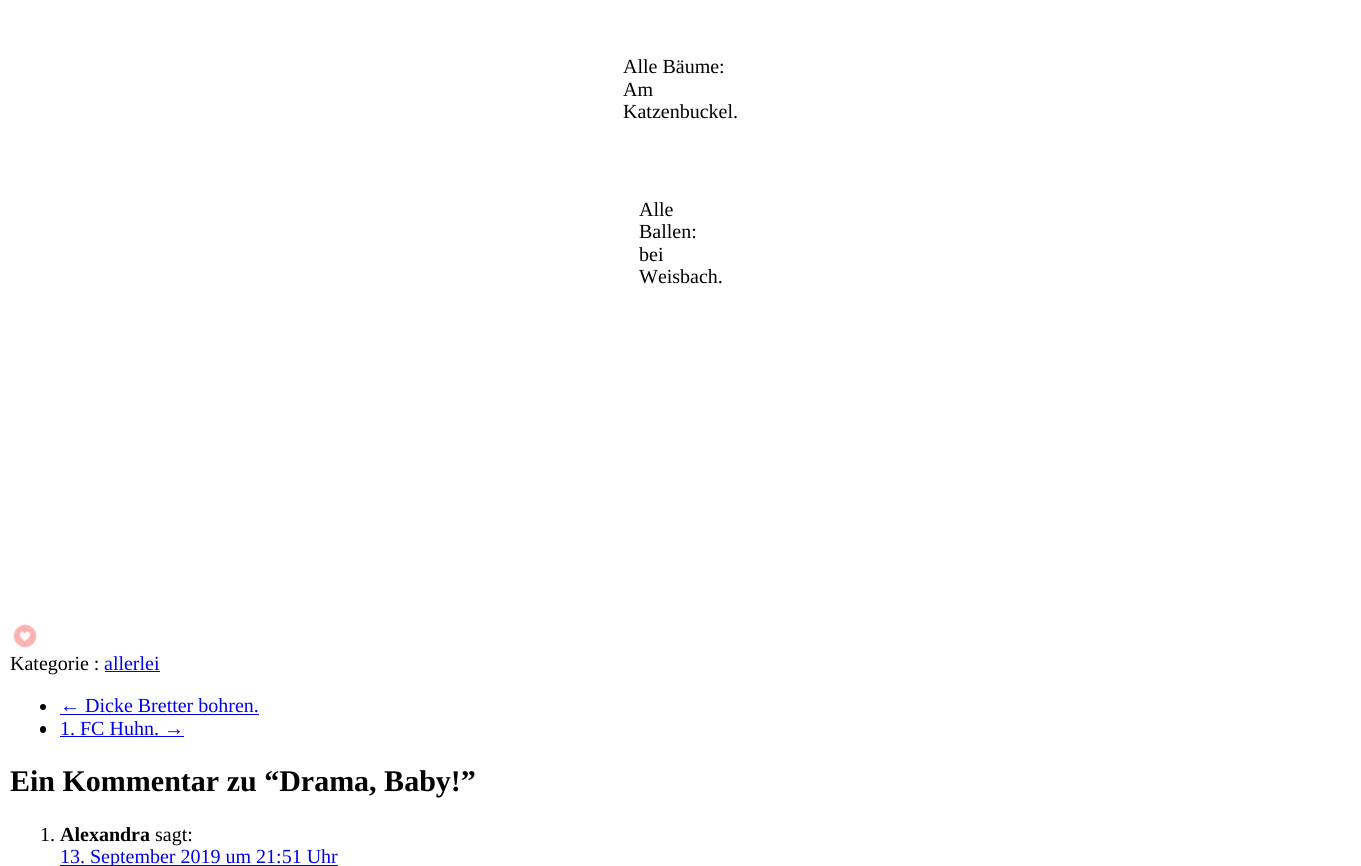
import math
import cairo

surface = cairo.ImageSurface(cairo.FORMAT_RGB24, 1361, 866)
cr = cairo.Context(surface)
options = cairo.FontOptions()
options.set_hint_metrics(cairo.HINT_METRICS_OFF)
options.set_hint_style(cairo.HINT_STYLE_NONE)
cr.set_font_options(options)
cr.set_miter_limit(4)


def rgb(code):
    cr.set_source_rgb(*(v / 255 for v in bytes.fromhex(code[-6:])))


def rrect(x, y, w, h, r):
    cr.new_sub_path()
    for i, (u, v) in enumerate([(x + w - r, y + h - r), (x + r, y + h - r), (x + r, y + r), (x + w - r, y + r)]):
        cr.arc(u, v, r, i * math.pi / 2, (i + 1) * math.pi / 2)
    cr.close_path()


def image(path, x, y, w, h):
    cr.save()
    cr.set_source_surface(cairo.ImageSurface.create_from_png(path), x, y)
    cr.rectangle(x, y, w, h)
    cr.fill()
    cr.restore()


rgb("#ffffff")
cr.paint()
image("img/1.png", 13, 624, 24, 24)
rgb("#0000ee")
cr.rectangle(105, 671, 55, 1)
cr.fill()
rgb("#000000")
cr.arc(43, 707, 3, 0, 2 * math.pi)
cr.fill()
rgb("#0000ee")
cr.rectangle(60, 714, 199, 1)
cr.fill()
rgb("#000000")
rrect(40, 726, 6, 7, 3)
cr.fill()
rgb("#0000ee")
cr.rectangle(60, 736, 124, 1)
cr.fill()
cr.rectangle(60, 865, 278, 1)
cr.fill()
cr.select_font_face("Liberation Serif")
cr.set_font_size(20)
rgb("#000000")
for x, y, s in [
    (623, 73, "Alle Bäume:"),
    (623, 96, "Am"),
    (623, 118, "Katzenbuckel."),
    (639, 216, "Alle"),
    (639, 238, "Ballen:"),
    (639, 261, "bei"),
    (639, 283, "Weisbach."),
    (10, 670, "Kategorie :"),
]:
    cr.move_to(x, y)
    cr.show_text(s)
rgb("#0000ee")
for x, y, s in [
    (104, 670, "allerlei"),
    (60, 712, "← Dicke Bretter bohren."),
    (60, 735, "1. FC Huhn. →"),
]:
    cr.move_to(x, y)
    cr.show_text(s)
cr.select_font_face("Liberation Serif", cairo.FONT_SLANT_NORMAL, cairo.FONT_WEIGHT_BOLD)
cr.set_font_size(30)
rgb("#000000")
cr.move_to(10, 791)
cr.show_text("Ein Kommentar zu “Drama, Baby!”")
cr.select_font_face("Liberation Serif")
cr.set_font_size(20)
cr.move_to(40, 841)
cr.show_text("1.")
cr.select_font_face("Liberation Serif", cairo.FONT_SLANT_NORMAL, cairo.FONT_WEIGHT_BOLD)
cr.move_to(60, 841)
cr.show_text("Alexandra")
cr.select_font_face("Liberation Serif")
cr.move_to(155, 841)
cr.show_text("sagt:")
rgb("#0000ee")
cr.move_to(60, 863)
cr.show_text("13. September 2019 um 21:51 Uhr")
surface.write_to_png("page.png")
